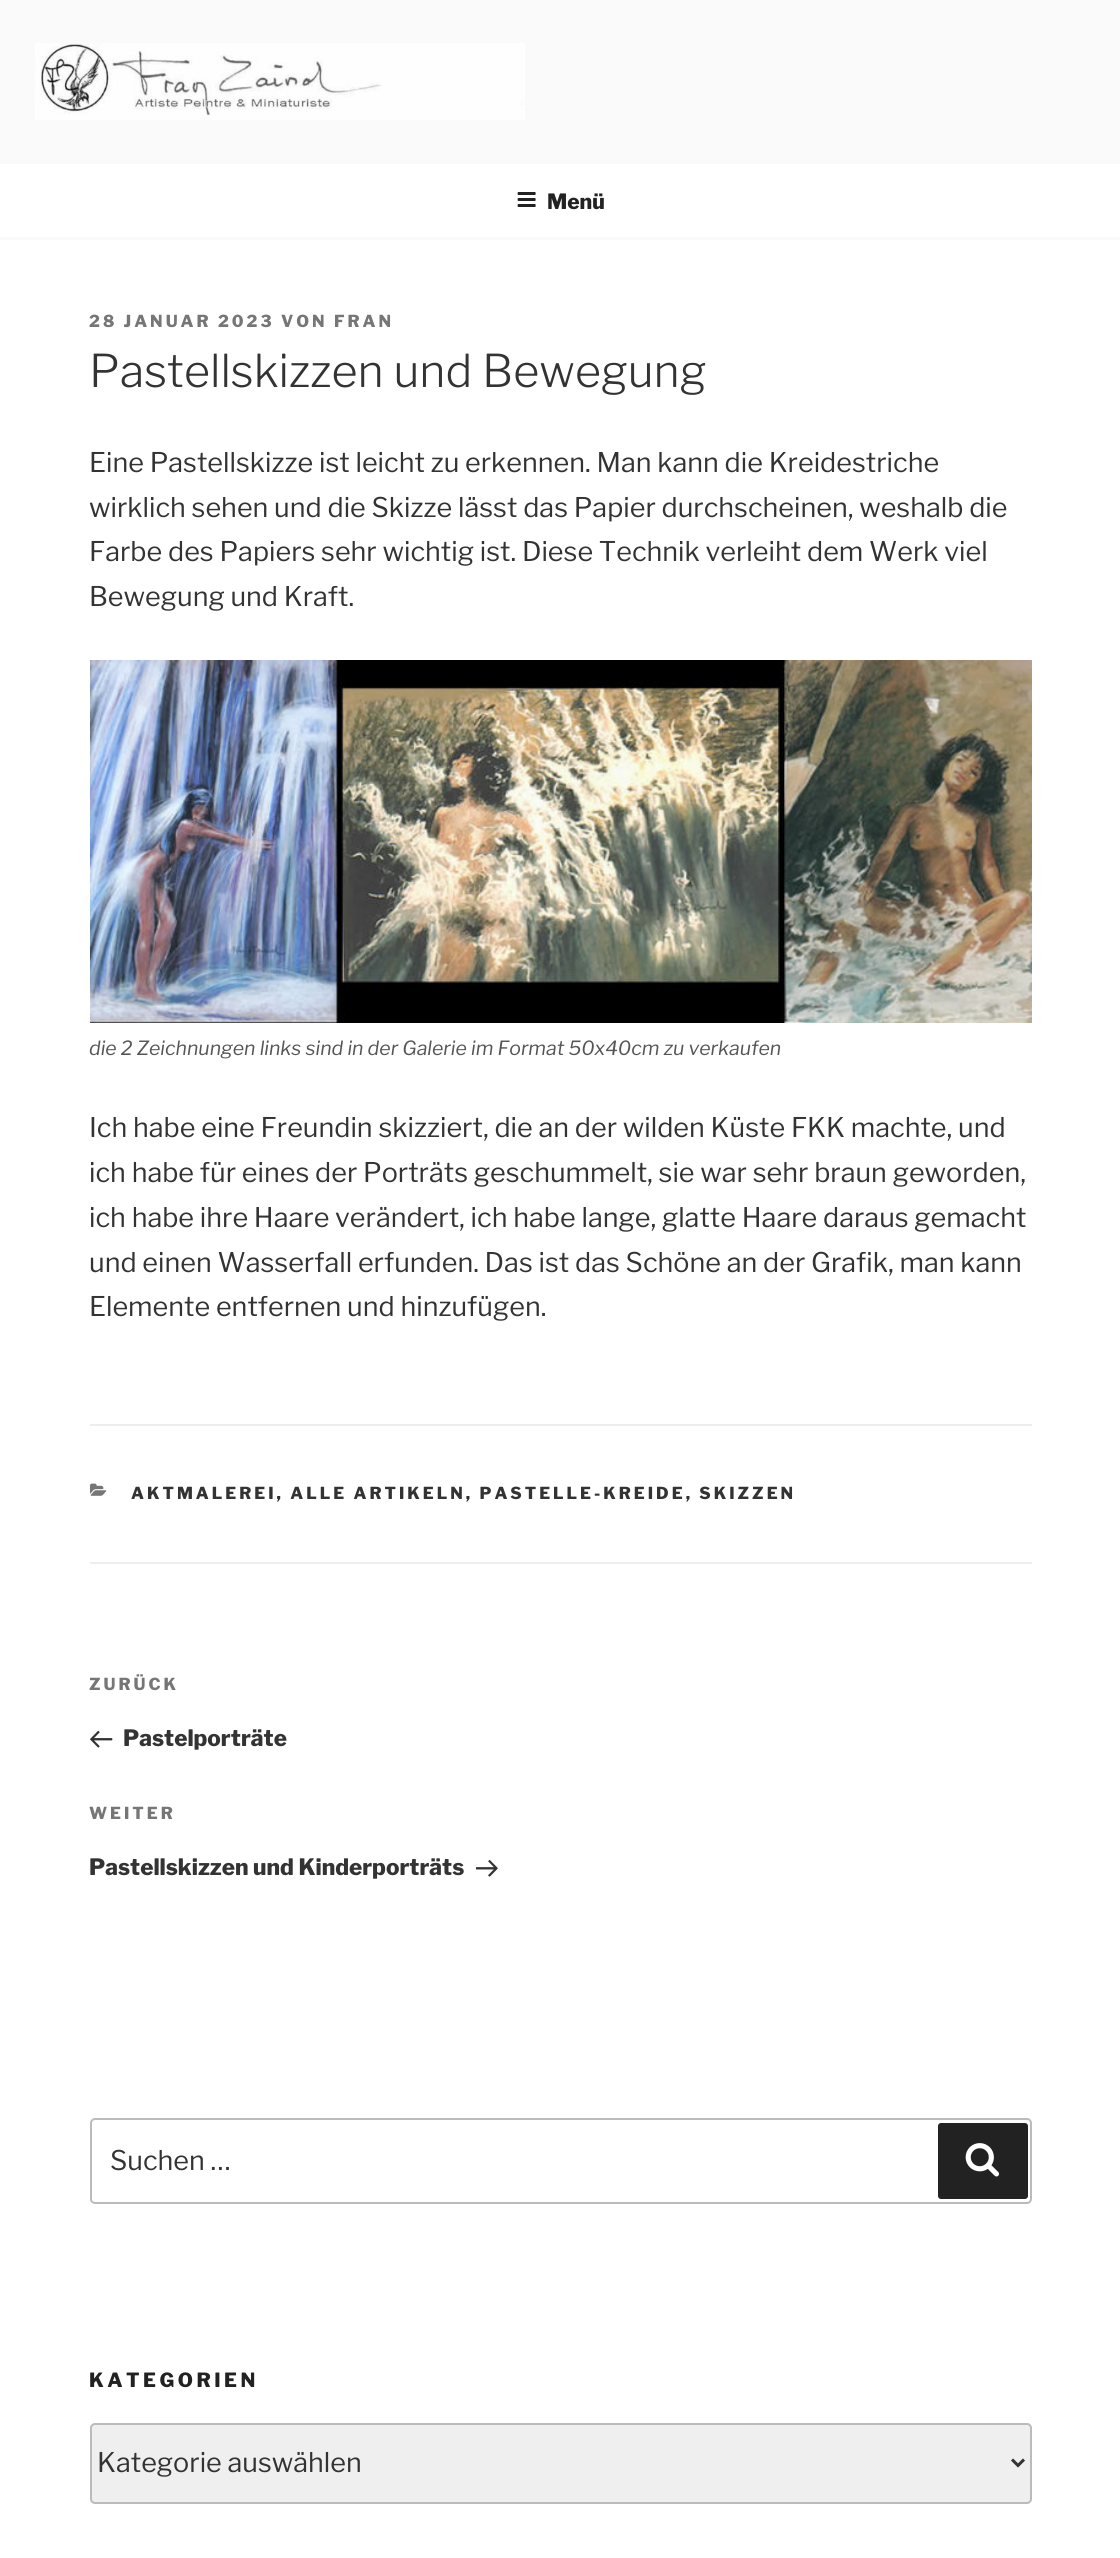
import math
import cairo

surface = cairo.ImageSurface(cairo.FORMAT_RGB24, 1120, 2558)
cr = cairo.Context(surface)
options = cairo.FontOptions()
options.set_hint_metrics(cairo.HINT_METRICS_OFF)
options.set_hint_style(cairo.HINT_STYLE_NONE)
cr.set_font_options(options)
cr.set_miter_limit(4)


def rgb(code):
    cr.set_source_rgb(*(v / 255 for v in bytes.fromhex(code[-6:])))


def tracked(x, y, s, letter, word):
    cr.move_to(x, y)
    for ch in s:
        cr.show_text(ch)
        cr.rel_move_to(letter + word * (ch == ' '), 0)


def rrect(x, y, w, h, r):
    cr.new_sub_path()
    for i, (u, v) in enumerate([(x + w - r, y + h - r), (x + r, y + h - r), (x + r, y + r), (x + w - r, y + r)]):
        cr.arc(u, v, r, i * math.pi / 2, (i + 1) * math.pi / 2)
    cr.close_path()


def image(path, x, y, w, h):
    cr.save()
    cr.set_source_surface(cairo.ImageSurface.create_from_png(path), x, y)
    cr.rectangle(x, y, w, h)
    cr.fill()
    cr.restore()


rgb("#ffffff")
cr.paint()
rgb("#fafafa")
cr.rectangle(0, 0, 1120, 240)
cr.fill()
image("img/1.png", 35, 43, 490, 77)
rgb("#ffffff")
cr.rectangle(0, 164, 1120, 73)
cr.fill()
image("img/2.png", 517, 192, 19, 15)
image("img/3.png", 90, 660, 942, 363)
rgb("#eeeeee")
cr.rectangle(90, 1424, 942, 2)
cr.fill()
cr.rectangle(90, 1562, 942, 2)
cr.fill()
image("img/4.png", 90, 1483, 17, 13)
image("img/5.png", 90, 1730, 23, 18)
image("img/6.png", 476, 1859, 22, 18)
rrect(91, 2119, 940, 84, 4)
rgb("#bbbbbb")
cr.stroke()
rgb("#222222")
rrect(938, 2123, 90, 76, 3)
cr.fill()
image("img/7.png", 965, 2143, 34, 34)
rgb("#efefef")
rrect(91, 2424, 940, 79, 4)
cr.fill_preserve()
rgb("#bbbbbb")
cr.stroke()
cr.new_path()
cr.move_to(1012, 2459.5)
cr.line_to(1018, 2465.5)
cr.line_to(1024, 2459.5)
rgb("#333333")
cr.set_line_width(3)
cr.stroke()
cr.select_font_face("Libre Franklin Thin")
cr.set_font_size(21)
rgb("#222222")
cr.move_to(547, 209)
cr.show_text("Menü")
cr.set_font_size(16.5)
rgb("#767676")
tracked(89, 327, "28 JANUAR 2023 VON FRAN", 3, 0)
cr.select_font_face("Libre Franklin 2 Thin")
cr.set_font_size(45)
rgb("#333333")
cr.move_to(89, 387)
cr.show_text("Pastellskizzen und Bewegung")
cr.select_font_face("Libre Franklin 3 Thin")
cr.set_font_size(27)
for x, y, s in [
    (89, 472, "Eine Pastellskizze ist leicht zu erkennen. Man kann die Kreidestriche"),
    (89, 517, "wirklich sehen und die Skizze lässt das Papier durchscheinen, weshalb die"),
    (89, 561, "Farbe des Papiers sehr wichtig ist. Diese Technik verleiht dem Werk viel"),
    (89, 606, "Bewegung und Kraft."),
]:
    cr.move_to(x, y)
    cr.show_text(s)
cr.select_font_face("Libre Franklin Thin", cairo.FONT_SLANT_ITALIC)
cr.set_font_size(19.5)
rgb("#555555")
cr.move_to(89, 1055)
cr.show_text("die 2 Zeichnungen links sind in der Galerie im Format 50x40cm zu verkaufen")
cr.select_font_face("Libre Franklin 3 Thin")
cr.set_font_size(27)
rgb("#333333")
for x, y, s in [
    (89, 1137, "Ich habe eine Freundin skizziert, die an der wilden Küste FKK machte, und"),
    (89, 1182, "ich habe für eines der Porträts geschummelt, sie war sehr braun geworden,"),
    (89, 1227, "ich habe ihre Haare verändert, ich habe lange, glatte Haare daraus gemacht"),
    (89, 1272, "und einen Wasserfall erfunden. Das ist das Schöne an der Grafik, man kann"),
    (89, 1316, "Elemente entfernen und hinzufügen."),
]:
    cr.move_to(x, y)
    cr.show_text(s)
cr.select_font_face("Libre Franklin Thin")
cr.set_font_size(16.5)
tracked(131, 1499, "AKTMALEREI, ALLE ARTIKELN, PASTELLE-KREIDE, SKIZZEN", 3, 0)
rgb("#767676")
tracked(89, 1690, "ZURÜCK", 3, 0)
cr.set_font_size(22.5)
rgb("#333333")
cr.move_to(123, 1746)
cr.show_text("Pastelporträte")
cr.set_font_size(16.5)
rgb("#767676")
tracked(89, 1819, "WEITER", 3, 0)
cr.set_font_size(22.5)
rgb("#333333")
cr.move_to(89, 1875)
cr.show_text("Pastellskizzen und Kinderporträts")
cr.select_font_face("Libre Franklin 3 Thin")
cr.set_font_size(27)
cr.move_to(110, 2170)
cr.show_text("Suchen …")
cr.select_font_face("Libre Franklin Thin")
cr.set_font_size(19.5)
rgb("#222222")
tracked(89, 2387, "KATEGORIEN", 3.5, 0)
cr.select_font_face("Libre Franklin 3 Thin")
cr.set_font_size(27)
rgb("#333333")
cr.move_to(97, 2472)
cr.show_text("Kategorie auswählen")
surface.write_to_png("page.png")
